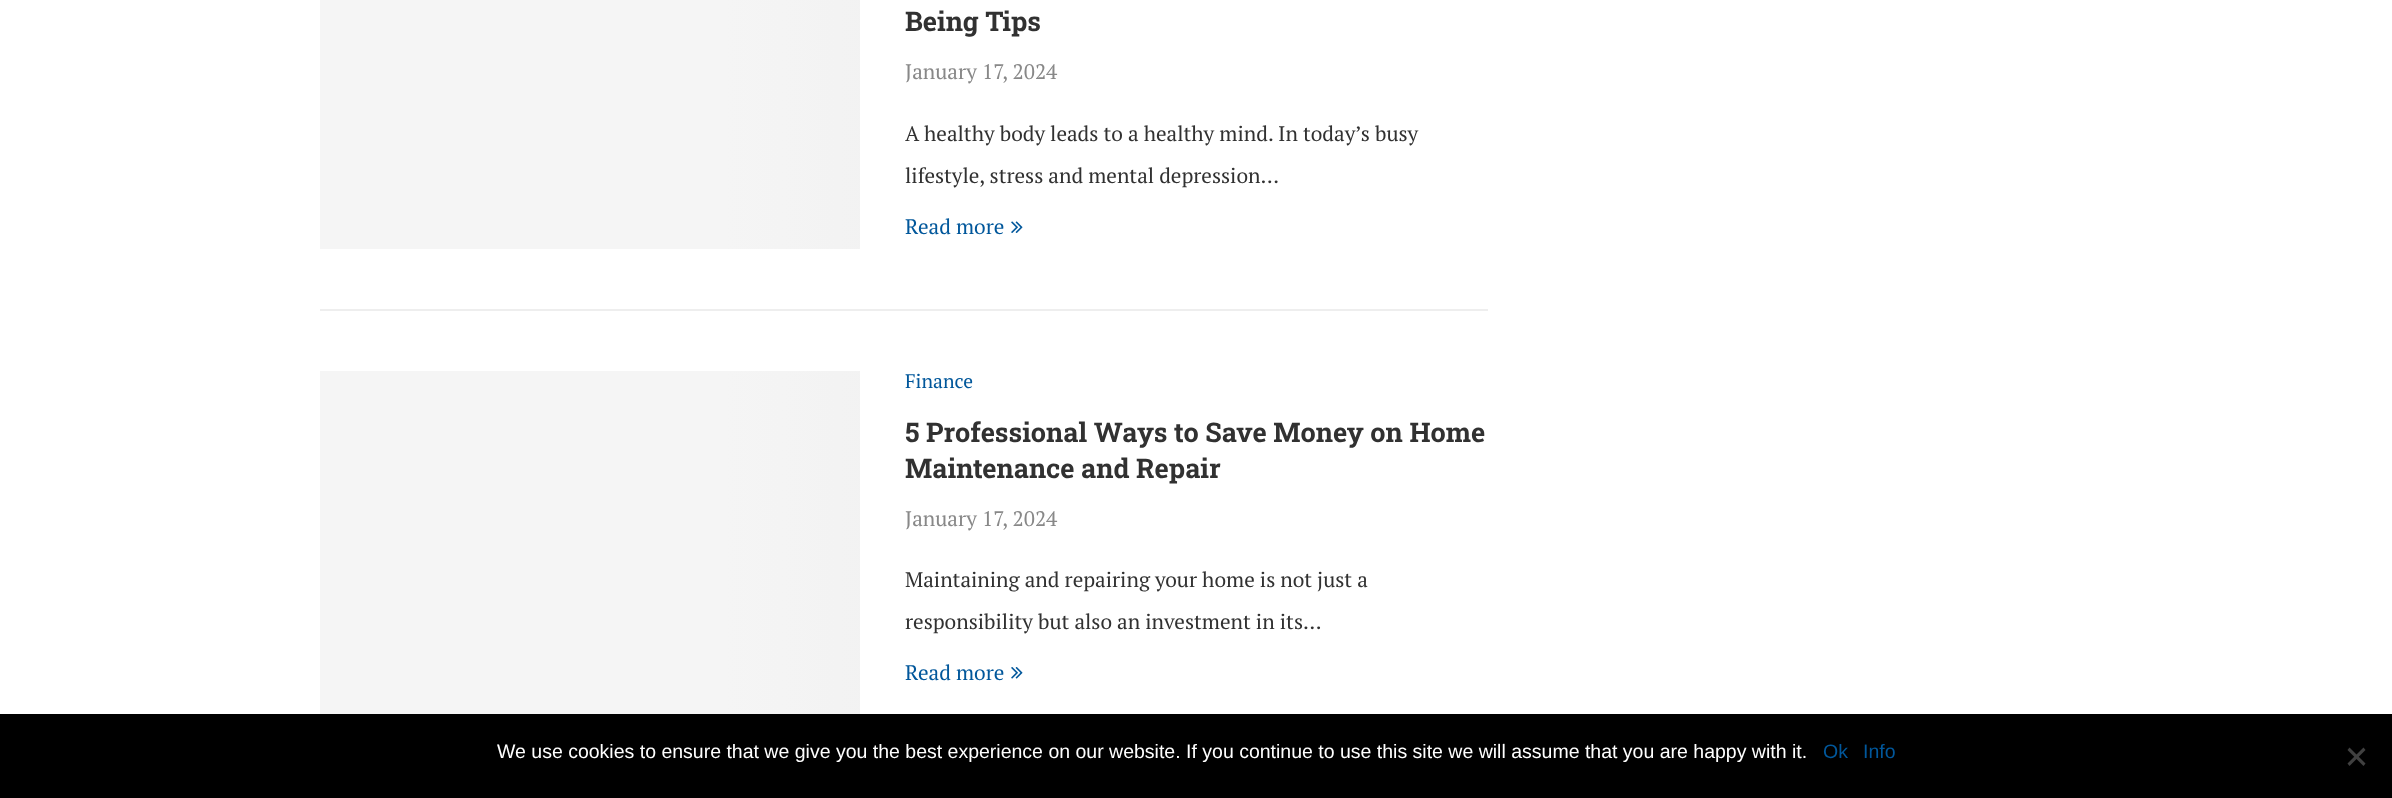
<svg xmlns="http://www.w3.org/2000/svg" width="2392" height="798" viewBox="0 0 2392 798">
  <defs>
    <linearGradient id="g1" gradientUnits="userSpaceOnUse" x1="1265" y1="68" x2="-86" y2="68"><stop offset="0" stop-color="#f5f5f5"/><stop offset="0.15" stop-color="#efefef"/><stop offset="0.4" stop-color="#f5f5f5"/><stop offset="1" stop-color="#f5f5f5"/></linearGradient>
    <linearGradient id="g2" gradientUnits="userSpaceOnUse" x1="1265" y1="551" x2="-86" y2="551"><stop offset="0" stop-color="#f5f5f5"/><stop offset="0.15" stop-color="#efefef"/><stop offset="0.4" stop-color="#f5f5f5"/><stop offset="1" stop-color="#f5f5f5"/></linearGradient>
  </defs>
  <rect width="100%" height="100%" fill="#ffffff"/>
  <rect x="320" y="309" width="1168" height="2" fill="#eeeeee"/>
  <rect x="320" y="0" width="540" height="249" fill="url(#g1)"/>
  <text x="905" y="31" font-family="Roboto Slab" font-size="27" font-weight="bold" fill="#313131">Being Tips</text>
  <text x="905" y="79" font-family="PT Serif" font-size="21" fill="#888888">January 17, 2024</text>
  <text x="905" y="141" font-family="PT Serif" font-size="21" fill="#313131">A healthy body leads to a healthy mind. In today’s busy</text>
  <text x="905" y="183" font-family="PT Serif" font-size="21" fill="#313131">lifestyle, stress and mental depression…</text>
  <text x="905" y="234" font-family="PT Serif" font-size="21" fill="#01579b">Read more</text>
  <image x="1011" y="221" width="12" height="12" href="img1.png"/>
  <rect x="320" y="371" width="540" height="343" fill="url(#g2)"/>
  <text x="905" y="388" font-family="PT Serif" font-size="19.5" fill="#01579b">Finance</text>
  <text x="905" y="442" font-family="Roboto Slab" font-size="27" font-weight="bold" fill="#313131">5 Professional Ways to Save Money on Home</text>
  <text x="905" y="478" font-family="Roboto Slab" font-size="27" font-weight="bold" fill="#313131">Maintenance and Repair</text>
  <text x="905" y="526" font-family="PT Serif" font-size="21" fill="#888888">January 17, 2024</text>
  <text x="905" y="587" font-family="PT Serif" font-size="21" fill="#313131">Maintaining and repairing your home is not just a</text>
  <text x="905" y="629" font-family="PT Serif" font-size="21" fill="#313131">responsibility but also an investment in its…</text>
  <text x="905" y="680" font-family="PT Serif" font-size="21" fill="#01579b">Read more</text>
  <image x="1011" y="667" width="12" height="12" href="img2.png"/>
  <rect x="0" y="714" width="2392" height="84" fill="#000000"/>
  <text x="497" y="758" font-family="Liberation Sans" font-size="19.5" fill="#ffffff">We use cookies to ensure that we give you the best experience on our website. If you continue to use this site we will assume that you are happy with it.</text>
  <text x="1823" y="758" font-family="Liberation Sans" font-size="19.5" fill="#01579b">Ok</text>
  <text x="1863" y="758" font-family="Liberation Sans" font-size="19.5" fill="#01579b">Info</text>
  <path d="M2363.5 747.5L2365.5 750L2349.5 766L2347.5 763.5Z" fill="#404040"/>
  <path d="M2347.5 750L2349.5 747.5L2365.5 763.5L2363.5 766Z" fill="#404040"/>
</svg>
